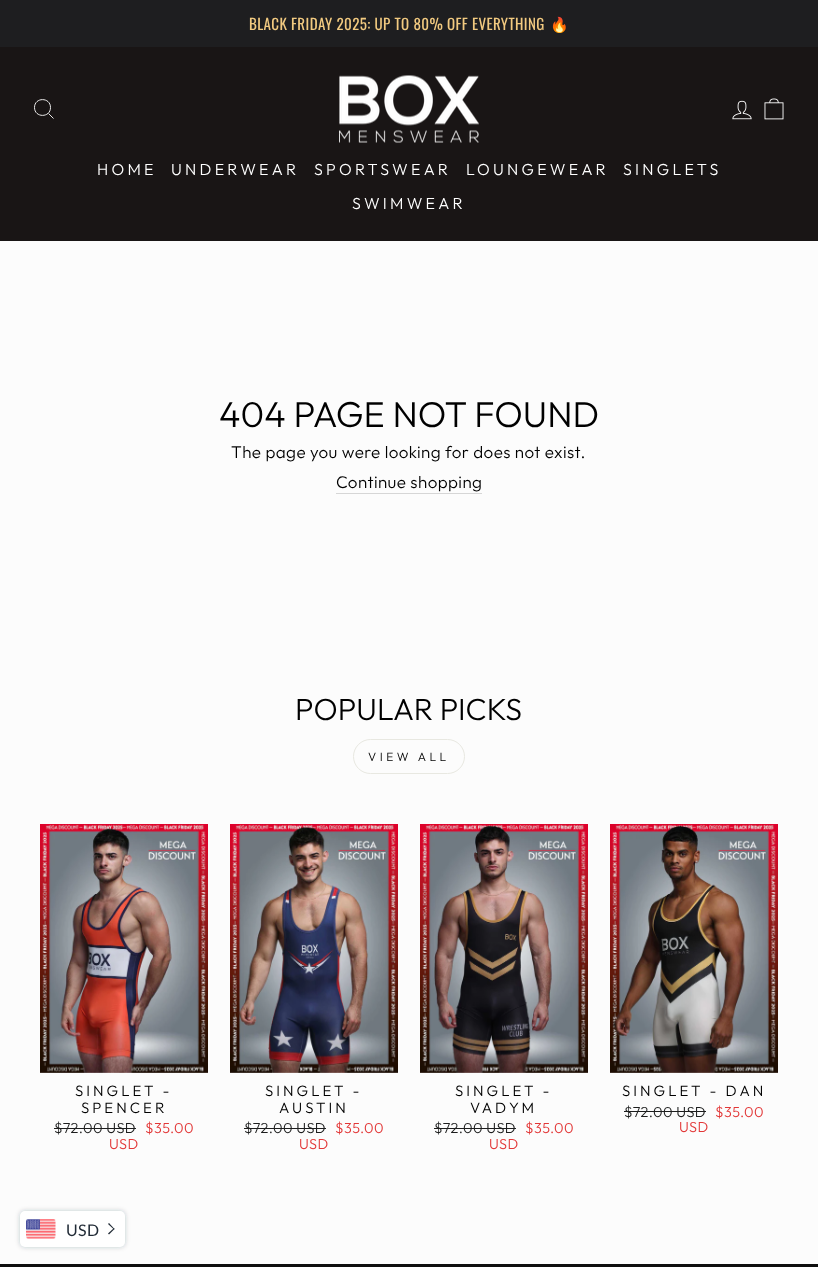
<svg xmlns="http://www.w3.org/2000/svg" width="818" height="1267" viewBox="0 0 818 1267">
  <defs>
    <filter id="blur1" x="-50%" y="-200%" width="200%" height="500%"><feGaussianBlur stdDeviation="2.5"/></filter>
  </defs>
  <rect width="100%" height="100%" fill="#fcfcfc"/>
  <rect x="0" y="0" width="818" height="47" fill="#1e1e20"/>
  <text x="249" y="30" font-family="Oswald" font-size="15" letter-spacing="0.4" fill="#f2ca80">BLACK FRIDAY 2025: UP TO 80% OFF EVERYTHING</text>
  <text x="550" y="30" font-family="Noto Color Emoji" font-size="15" letter-spacing="0.4" fill="#f2ca80">🔥</text>
  <rect x="0" y="47" width="818" height="194" fill="#191515"/>
  <path d="M50.5 107.5C50.5 118 34.5 118 34.5 107.5C34.5 97 50.5 97 50.5 107.5ZM53.5 118.5L48.5 113.5" fill="none" stroke="#ffffff" stroke-width="0.9"/>
  <image x="339" y="75" width="140" height="68" href="img1.png"/>
  <image x="732" y="100" width="20" height="20" href="img2.png"/>
  <image x="764" y="98" width="20" height="22" href="img3.png"/>
  <text x="97" y="175" font-family="Outfit" font-size="16" font-weight="300" letter-spacing="3.25" fill="#ffffff">HOME</text>
  <text x="171" y="175" font-family="Outfit" font-size="16" font-weight="300" letter-spacing="3.25" fill="#ffffff">UNDERWEAR</text>
  <text x="314" y="175" font-family="Outfit" font-size="16" font-weight="300" letter-spacing="3.25" fill="#ffffff">SPORTSWEAR</text>
  <text x="466" y="175" font-family="Outfit" font-size="16" font-weight="300" letter-spacing="3.25" fill="#ffffff">LOUNGEWEAR</text>
  <text x="623" y="175" font-family="Outfit" font-size="16" font-weight="300" letter-spacing="3.25" fill="#ffffff">SINGLETS</text>
  <text x="352" y="209" font-family="Outfit" font-size="16" font-weight="300" letter-spacing="3.25" fill="#ffffff">SWIMWEAR</text>
  <text x="219" y="427" font-family="Outfit" font-size="36" font-weight="300" fill="#000000">404 PAGE NOT FOUND</text>
  <text x="231" y="458" font-family="Outfit" font-size="17" font-weight="300" letter-spacing="0.4" fill="#000000">The page you were looking for does not exist.</text>
  <rect x="336" y="493" width="146" height="1" fill="#d6d6d6"/>
  <text x="336" y="488" font-family="Outfit" font-size="17" font-weight="300" letter-spacing="0.4" fill="#000000">Continue shopping</text>
  <text x="295" y="720" font-family="Outfit" font-size="30.5" font-weight="300" fill="#000000">POPULAR PICKS</text>
  <rect x="353.5" y="739.5" width="111" height="34" rx="17" fill="none" stroke="#e8e8e1"/>
  <text x="368" y="761" font-family="Outfit" font-size="12" font-weight="300" letter-spacing="3.5" fill="#000000">VIEW ALL</text>
  <image x="40" y="824" width="168" height="249" href="img4.png"/>
  <text x="75" y="1096" font-family="Outfit" font-size="15" font-weight="300" letter-spacing="3" fill="#000000">SINGLET -</text>
  <text x="81" y="1113" font-family="Outfit" font-size="15" font-weight="300" letter-spacing="3" fill="#000000">SPENCER</text>
  <text x="54" y="1133" font-family="Outfit" font-size="14.5" font-weight="300" letter-spacing="0.4" fill="#1c1d1d">$72.00 USD</text>
  <rect x="54" y="1128" width="82" height="1" fill="#1c1d1d"/>
  <text x="145" y="1133" font-family="Outfit" font-size="14.5" font-weight="300" letter-spacing="0.4" fill="#e23737">$35.00</text>
  <text x="109" y="1149" font-family="Outfit" font-size="14.5" font-weight="300" letter-spacing="0.4" fill="#e23737">USD</text>
  <image x="230" y="824" width="168" height="249" href="img5.png"/>
  <text x="265" y="1096" font-family="Outfit" font-size="15" font-weight="300" letter-spacing="3" fill="#000000">SINGLET -</text>
  <text x="279" y="1113" font-family="Outfit" font-size="15" font-weight="300" letter-spacing="3" fill="#000000">AUSTIN</text>
  <text x="244" y="1133" font-family="Outfit" font-size="14.5" font-weight="300" letter-spacing="0.4" fill="#1c1d1d">$72.00 USD</text>
  <rect x="244" y="1128" width="82" height="1" fill="#1c1d1d"/>
  <text x="335" y="1133" font-family="Outfit" font-size="14.5" font-weight="300" letter-spacing="0.4" fill="#e23737">$35.00</text>
  <text x="299" y="1149" font-family="Outfit" font-size="14.5" font-weight="300" letter-spacing="0.4" fill="#e23737">USD</text>
  <image x="420" y="824" width="168" height="249" href="img6.png"/>
  <text x="455" y="1096" font-family="Outfit" font-size="15" font-weight="300" letter-spacing="3" fill="#000000">SINGLET -</text>
  <text x="470" y="1113" font-family="Outfit" font-size="15" font-weight="300" letter-spacing="3" fill="#000000">VADYM</text>
  <text x="434" y="1133" font-family="Outfit" font-size="14.5" font-weight="300" letter-spacing="0.4" fill="#1c1d1d">$72.00 USD</text>
  <rect x="434" y="1128" width="82" height="1" fill="#1c1d1d"/>
  <text x="525" y="1133" font-family="Outfit" font-size="14.5" font-weight="300" letter-spacing="0.4" fill="#e23737">$35.00</text>
  <text x="489" y="1149" font-family="Outfit" font-size="14.5" font-weight="300" letter-spacing="0.4" fill="#e23737">USD</text>
  <image x="610" y="824" width="168" height="249" href="img7.png"/>
  <text x="622" y="1096" font-family="Outfit" font-size="15" font-weight="300" letter-spacing="3" fill="#000000">SINGLET - DAN</text>
  <text x="624" y="1117" font-family="Outfit" font-size="14.5" font-weight="300" letter-spacing="0.4" fill="#1c1d1d">$72.00 USD</text>
  <rect x="624" y="1111" width="82" height="1" fill="#1c1d1d"/>
  <text x="715" y="1117" font-family="Outfit" font-size="14.5" font-weight="300" letter-spacing="0.4" fill="#e23737">$35.00</text>
  <text x="679" y="1132" font-family="Outfit" font-size="14.5" font-weight="300" letter-spacing="0.4" fill="#e23737">USD</text>
  <rect x="0" y="1264" width="818" height="3" fill="#0f0f0f"/>
  <rect x="20" y="1211" width="105" height="36" rx="5" fill="#212b36" fill-opacity="0.25" filter="url(#blur1)"/>
  <rect x="20" y="1211" width="105" height="36" rx="5" fill="#ffffff"/>
  <image x="26" y="1219" width="30" height="20" href="img8.png"/>
  <text x="66" y="1236" font-family="Lato" font-size="16" letter-spacing="0.4" fill="#212b36">USD</text>
  <path d="M108 1224L109 1223L114.5 1229L114 1229.5Z" fill="#212b36"/>
  <path d="M108 1233.5L114 1228L114.5 1229L109 1234.5Z" fill="#212b36"/>
</svg>
